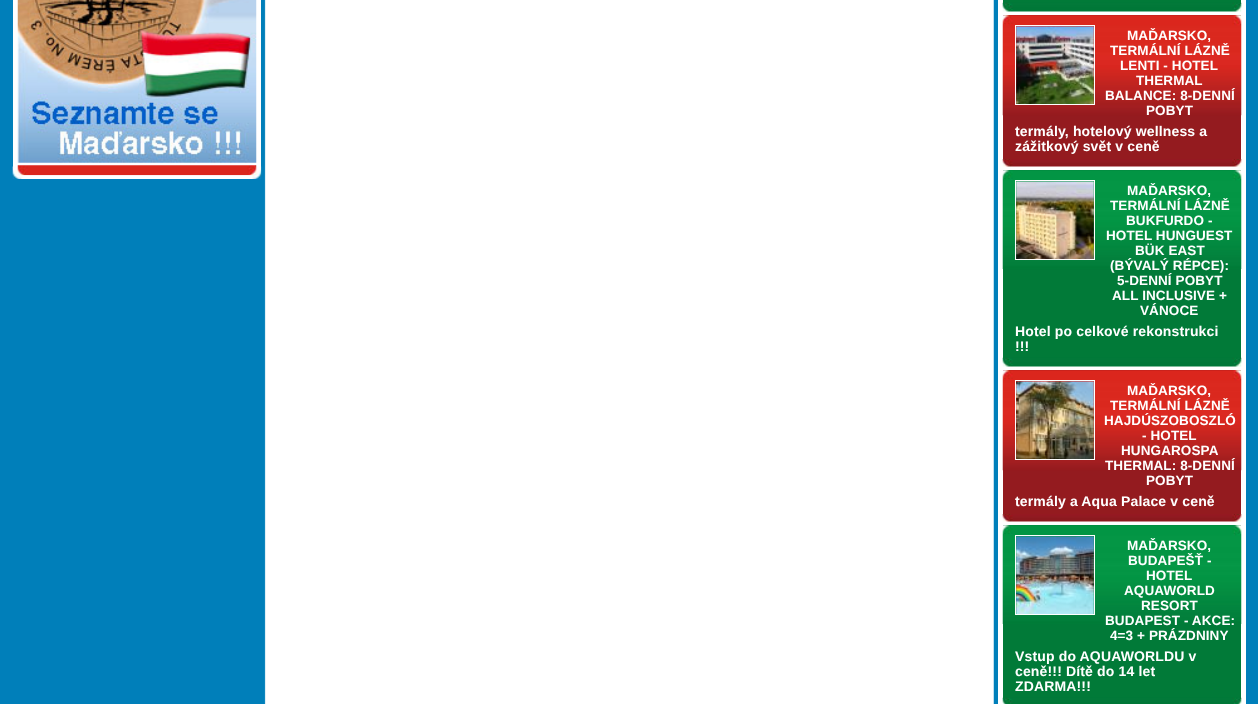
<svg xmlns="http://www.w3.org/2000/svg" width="1258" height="704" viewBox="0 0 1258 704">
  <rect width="100%" height="100%" fill="#007fba"/>
  <image x="264" y="0" width="730" height="704" href="img1.png"/>
  <rect x="13" y="0" width="248" height="167" fill="#ffffff"/>
  <image x="17" y="0" width="240" height="163" href="img2.png"/>
  <image x="12" y="166" width="250" height="13" href="img4.png"/>
  <image x="17" y="165" width="240" height="11" href="img3.png"/>
  <rect x="998" y="0" width="248" height="704" fill="#ffffff"/>
  <rect x="1003" y="0" width="238" height="3" fill="#017a38"/>
  <image x="1002" y="2" width="240" height="10" href="img5.png"/>
  <rect x="1003" y="15" width="238" height="144" fill="#941b1f"/>
  <image x="1002" y="15" width="240" height="101" href="img6.png"/>
  <image x="1002" y="159" width="240" height="8" href="img7.png"/>
  <rect x="1015.5" y="25.5" width="79" height="79" fill="none" stroke="#ffffff"/>
  <image x="1016" y="26" width="78" height="78" href="img8.png"/>
  <text x="1127" y="40" font-family="Liberation Sans" font-size="13.5" font-weight="bold" letter-spacing="0.1" fill="#ffffff">MAĎARSKO,</text>
  <text x="1110" y="55" font-family="Liberation Sans" font-size="13.5" font-weight="bold" letter-spacing="0.1" fill="#ffffff">TERMÁLNÍ LÁZNĚ</text>
  <text x="1120" y="70" font-family="Liberation Sans" font-size="13.5" font-weight="bold" letter-spacing="0.1" fill="#ffffff">LENTI - HOTEL</text>
  <text x="1136" y="85" font-family="Liberation Sans" font-size="13.5" font-weight="bold" letter-spacing="0.1" fill="#ffffff">THERMAL</text>
  <text x="1105" y="100" font-family="Liberation Sans" font-size="13.5" font-weight="bold" letter-spacing="0.1" fill="#ffffff">BALANCE: 8-DENNÍ</text>
  <text x="1146" y="115" font-family="Liberation Sans" font-size="13.5" font-weight="bold" letter-spacing="0.1" fill="#ffffff">POBYT</text>
  <text x="1015" y="136" font-family="Liberation Sans" font-size="14" font-weight="bold" letter-spacing="0.15" fill="#ffffff">termály, hotelový wellness a</text>
  <text x="1015" y="151" font-family="Liberation Sans" font-size="14" font-weight="bold" letter-spacing="0.15" fill="#ffffff">zážitkový svět v ceně</text>
  <rect x="1003" y="170" width="238" height="188" fill="#017a38"/>
  <image x="1002" y="170" width="240" height="99" href="img9.png"/>
  <image x="1002" y="357" width="240" height="10" href="img5.png"/>
  <rect x="1015.5" y="180.5" width="79" height="79" fill="none" stroke="#ffffff"/>
  <image x="1016" y="181" width="78" height="78" href="img10.png"/>
  <text x="1127" y="195" font-family="Liberation Sans" font-size="13.5" font-weight="bold" letter-spacing="0.1" fill="#ffffff">MAĎARSKO,</text>
  <text x="1110" y="210" font-family="Liberation Sans" font-size="13.5" font-weight="bold" letter-spacing="0.1" fill="#ffffff">TERMÁLNÍ LÁZNĚ</text>
  <text x="1126" y="225" font-family="Liberation Sans" font-size="13.5" font-weight="bold" letter-spacing="0.1" fill="#ffffff">BUKFURDO -</text>
  <text x="1106" y="240" font-family="Liberation Sans" font-size="13.5" font-weight="bold" letter-spacing="0.1" fill="#ffffff">HOTEL HUNGUEST</text>
  <text x="1135" y="255" font-family="Liberation Sans" font-size="13.5" font-weight="bold" letter-spacing="0.1" fill="#ffffff">BÜK EAST</text>
  <text x="1110" y="270" font-family="Liberation Sans" font-size="13.5" font-weight="bold" letter-spacing="0.1" fill="#ffffff">(BÝVALÝ RÉPCE):</text>
  <text x="1117" y="285" font-family="Liberation Sans" font-size="13.5" font-weight="bold" letter-spacing="0.1" fill="#ffffff">5-DENNÍ POBYT</text>
  <text x="1112" y="300" font-family="Liberation Sans" font-size="13.5" font-weight="bold" letter-spacing="0.1" fill="#ffffff">ALL INCLUSIVE +</text>
  <text x="1140" y="315" font-family="Liberation Sans" font-size="13.5" font-weight="bold" letter-spacing="0.1" fill="#ffffff">VÁNOCE</text>
  <text x="1015" y="336" font-family="Liberation Sans" font-size="14" font-weight="bold" letter-spacing="0.15" fill="#ffffff">Hotel po celkové rekonstrukci</text>
  <text x="1015" y="351" font-family="Liberation Sans" font-size="14" font-weight="bold" letter-spacing="0.15" fill="#ffffff">!!!</text>
  <rect x="1003" y="370" width="238" height="144" fill="#941b1f"/>
  <image x="1002" y="370" width="240" height="101" href="img6.png"/>
  <image x="1002" y="514" width="240" height="8" href="img7.png"/>
  <rect x="1015.5" y="380.5" width="79" height="79" fill="none" stroke="#ffffff"/>
  <image x="1016" y="381" width="78" height="78" href="img11.png"/>
  <text x="1127" y="395" font-family="Liberation Sans" font-size="13.5" font-weight="bold" letter-spacing="0.1" fill="#ffffff">MAĎARSKO,</text>
  <text x="1110" y="410" font-family="Liberation Sans" font-size="13.5" font-weight="bold" letter-spacing="0.1" fill="#ffffff">TERMÁLNÍ LÁZNĚ</text>
  <text x="1104" y="425" font-family="Liberation Sans" font-size="13.5" font-weight="bold" letter-spacing="0.1" fill="#ffffff">HAJDÚSZOBOSZLÓ</text>
  <text x="1142" y="440" font-family="Liberation Sans" font-size="13.5" font-weight="bold" letter-spacing="0.1" fill="#ffffff">- HOTEL</text>
  <text x="1121" y="455" font-family="Liberation Sans" font-size="13.5" font-weight="bold" letter-spacing="0.1" fill="#ffffff">HUNGAROSPA</text>
  <text x="1105" y="470" font-family="Liberation Sans" font-size="13.5" font-weight="bold" letter-spacing="0.1" fill="#ffffff">THERMAL: 8-DENNÍ</text>
  <text x="1146" y="485" font-family="Liberation Sans" font-size="13.5" font-weight="bold" letter-spacing="0.1" fill="#ffffff">POBYT</text>
  <text x="1015" y="506" font-family="Liberation Sans" font-size="14" font-weight="bold" letter-spacing="0.15" fill="#ffffff">termály a Aqua Palace v ceně</text>
  <rect x="1003" y="525" width="238" height="173" fill="#017a38"/>
  <image x="1002" y="525" width="240" height="99" href="img9.png"/>
  <image x="1002" y="697" width="240" height="7" href="img12.png"/>
  <rect x="1015.5" y="535.5" width="79" height="79" fill="none" stroke="#ffffff"/>
  <image x="1016" y="536" width="78" height="78" href="img13.png"/>
  <text x="1127" y="550" font-family="Liberation Sans" font-size="13.5" font-weight="bold" letter-spacing="0.1" fill="#ffffff">MAĎARSKO,</text>
  <text x="1128" y="565" font-family="Liberation Sans" font-size="13.5" font-weight="bold" letter-spacing="0.1" fill="#ffffff">BUDAPEŠŤ -</text>
  <text x="1146" y="580" font-family="Liberation Sans" font-size="13.5" font-weight="bold" letter-spacing="0.1" fill="#ffffff">HOTEL</text>
  <text x="1124" y="595" font-family="Liberation Sans" font-size="13.5" font-weight="bold" letter-spacing="0.1" fill="#ffffff">AQUAWORLD</text>
  <text x="1141" y="610" font-family="Liberation Sans" font-size="13.5" font-weight="bold" letter-spacing="0.1" fill="#ffffff">RESORT</text>
  <text x="1105" y="625" font-family="Liberation Sans" font-size="13.5" font-weight="bold" letter-spacing="0.1" fill="#ffffff">BUDAPEST - AKCE:</text>
  <text x="1110" y="640" font-family="Liberation Sans" font-size="13.5" font-weight="bold" letter-spacing="0.1" fill="#ffffff">4=3 + PRÁZDNINY</text>
  <text x="1015" y="661" font-family="Liberation Sans" font-size="14" font-weight="bold" letter-spacing="0.15" fill="#ffffff">Vstup do AQUAWORLDU v</text>
  <text x="1015" y="676" font-family="Liberation Sans" font-size="14" font-weight="bold" letter-spacing="0.15" fill="#ffffff">ceně!!! Dítě do 14 let</text>
  <text x="1015" y="691" font-family="Liberation Sans" font-size="14" font-weight="bold" letter-spacing="0.15" fill="#ffffff">ZDARMA!!!</text>
</svg>
